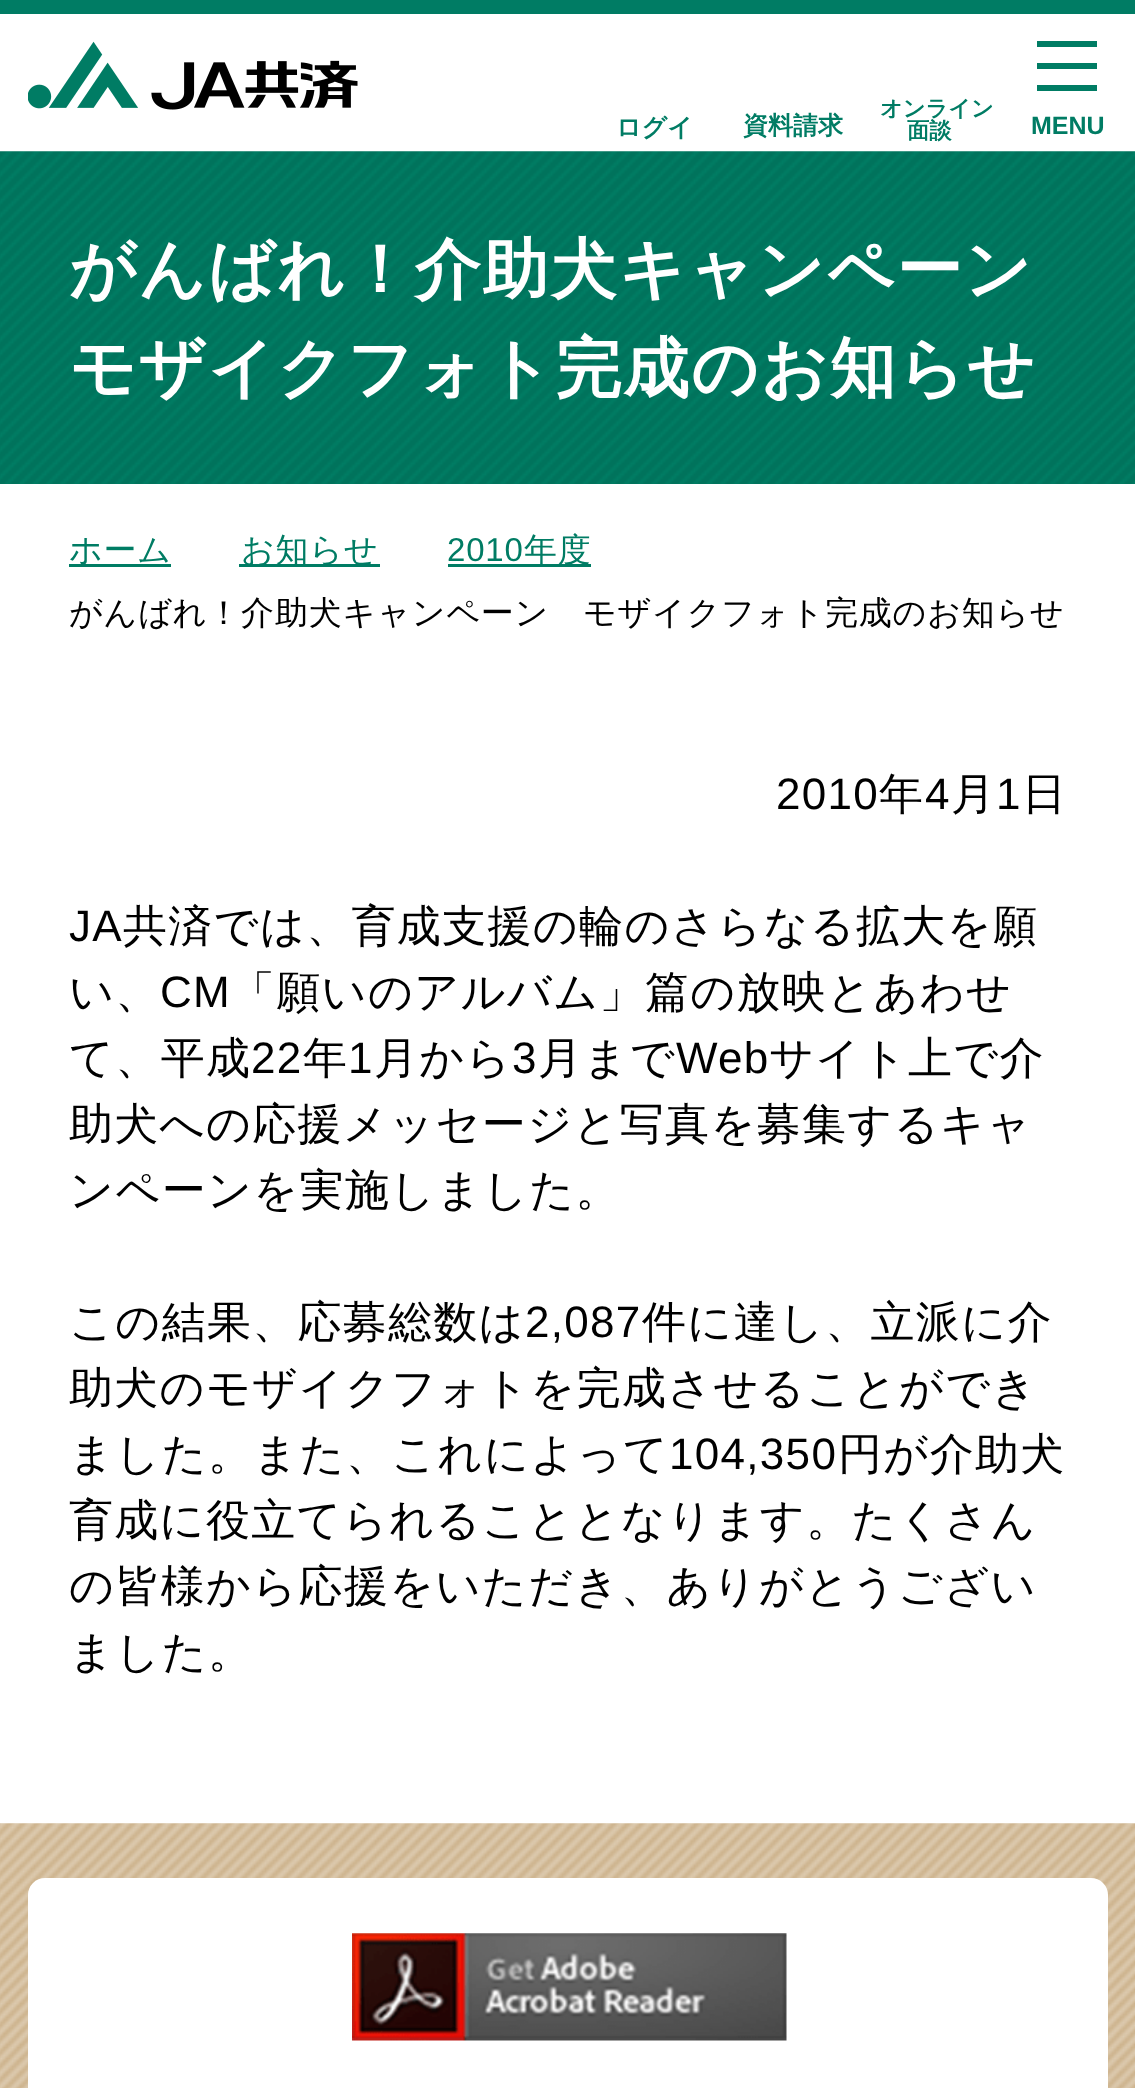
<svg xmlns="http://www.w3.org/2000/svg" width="1135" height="2088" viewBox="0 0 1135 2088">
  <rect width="100%" height="100%" fill="#ffffff"/>
  <rect x="0" y="0" width="1135" height="14" fill="#007c64"/>
  <image x="28" y="41" width="330" height="69" href="img1.png"/>
  <text x="616" y="136" font-family="WenQuanYi Zen Hei" font-size="25" font-weight="bold" fill="#007c64">ログイ</text>
  <text x="743" y="134" font-family="WenQuanYi Zen Hei" font-size="25" font-weight="bold" fill="#007c64">資料請求</text>
  <text x="880" y="116" font-family="WenQuanYi Zen Hei" font-size="22.25" font-weight="bold" fill="#007c64">オンライン</text>
  <text x="907" y="138" font-family="WenQuanYi Zen Hei" font-size="22.25" font-weight="bold" fill="#007c64">⾯談</text>
  <rect x="1037" y="41" width="60" height="6" fill="#007c64"/>
  <rect x="1037" y="63" width="60" height="6" fill="#007c64"/>
  <rect x="1037" y="85" width="60" height="6" fill="#007c64"/>
  <text x="1031" y="134" font-family="Liberation Sans" font-size="25" font-weight="bold" fill="#007c64">MENU</text>
  <image x="0" y="151" width="1135" height="333" href="img2.png"/>
  <text x="69" y="292" font-family="WenQuanYi Zen Hei" font-size="66" font-weight="bold" letter-spacing="1.9" fill="#ffffff">がんばれ！介助犬キャンペーン</text>
  <text x="69" y="391" font-family="WenQuanYi Zen Hei" font-size="66" font-weight="bold" letter-spacing="1.9" fill="#ffffff">モザイクフォト完成のお知らせ</text>
  <rect x="69" y="564" width="102" height="3" fill="#007c64"/>
  <text x="69" y="561" font-family="WenQuanYi Zen Hei" font-size="33" font-weight="500" letter-spacing="0.8" fill="#007c64">ホーム</text>
  <rect x="239" y="564" width="141" height="3" fill="#007c64"/>
  <text x="241" y="561" font-family="WenQuanYi Zen Hei" font-size="33" font-weight="500" letter-spacing="0.8" fill="#007c64">お知らせ</text>
  <text x="447" y="561" font-family="Liberation Sans" font-size="33" letter-spacing="0.8" fill="#007c64">2010</text>
  <rect x="448" y="564" width="143" height="3" fill="#007c64"/>
  <text x="524" y="561" font-family="WenQuanYi Zen Hei" font-size="33" font-weight="500" letter-spacing="0.8" fill="#007c64">年度</text>
  <text x="69" y="624" font-family="WenQuanYi Zen Hei" font-size="33" font-weight="500" letter-spacing="0.8" fill="#000000">がんばれ！介助犬キャンペーン　モザイクフォト完成のお知らせ</text>
  <text x="776" y="809" font-family="Liberation Sans" font-size="44" letter-spacing="1.3" fill="#000000">2010</text>
  <text x="879" y="809" font-family="WenQuanYi Zen Hei" font-size="44" font-weight="500" letter-spacing="1.3" fill="#000000">年</text>
  <text x="925" y="809" font-family="Liberation Sans" font-size="44" letter-spacing="1.3" fill="#000000">4</text>
  <text x="951" y="809" font-family="WenQuanYi Zen Hei" font-size="44" font-weight="500" letter-spacing="1.3" fill="#000000">月</text>
  <text x="996" y="809" font-family="Liberation Sans" font-size="44" letter-spacing="1.3" fill="#000000">1</text>
  <text x="1022" y="809" font-family="WenQuanYi Zen Hei" font-size="44" font-weight="500" letter-spacing="1.3" fill="#000000">日</text>
  <text x="69" y="941" font-family="Liberation Sans" font-size="44" letter-spacing="1.3" fill="#000000">JA</text>
  <text x="123" y="941" font-family="WenQuanYi Zen Hei" font-size="44" font-weight="500" letter-spacing="1.3" fill="#000000">共済では、育成支援の輪のさらなる拡大を願</text>
  <text x="69" y="1007" font-family="WenQuanYi Zen Hei" font-size="44" font-weight="500" letter-spacing="1.3" fill="#000000">い、</text>
  <text x="160" y="1007" font-family="Liberation Sans" font-size="44" letter-spacing="1.3" fill="#000000">CM</text>
  <text x="231" y="1007" font-family="WenQuanYi Zen Hei" font-size="44" font-weight="500" letter-spacing="1.3" fill="#000000">「願いのアルバム」篇の放映とあわせ</text>
  <text x="69" y="1073" font-family="WenQuanYi Zen Hei" font-size="44" font-weight="500" letter-spacing="1.3" fill="#000000">て、平成</text>
  <text x="251" y="1073" font-family="Liberation Sans" font-size="44" letter-spacing="1.3" fill="#000000">22</text>
  <text x="303" y="1073" font-family="WenQuanYi Zen Hei" font-size="44" font-weight="500" letter-spacing="1.3" fill="#000000">年</text>
  <text x="348" y="1073" font-family="Liberation Sans" font-size="44" letter-spacing="1.3" fill="#000000">1</text>
  <text x="374" y="1073" font-family="WenQuanYi Zen Hei" font-size="44" font-weight="500" letter-spacing="1.3" fill="#000000">月から</text>
  <text x="512" y="1073" font-family="Liberation Sans" font-size="44" letter-spacing="1.3" fill="#000000">3</text>
  <text x="538" y="1073" font-family="WenQuanYi Zen Hei" font-size="44" font-weight="500" letter-spacing="1.3" fill="#000000">月まで</text>
  <text x="676" y="1073" font-family="Liberation Sans" font-size="44" letter-spacing="1.3" fill="#000000">Web</text>
  <text x="769" y="1073" font-family="WenQuanYi Zen Hei" font-size="44" font-weight="500" letter-spacing="1.3" fill="#000000">サイト上で介</text>
  <text x="69" y="1139" font-family="WenQuanYi Zen Hei" font-size="44" font-weight="500" letter-spacing="1.3" fill="#000000">助犬への応援メッセージと写真を募集するキャ</text>
  <text x="69" y="1205" font-family="WenQuanYi Zen Hei" font-size="44" font-weight="500" letter-spacing="1.3" fill="#000000">ンペーンを実施しました。</text>
  <text x="69" y="1337" font-family="WenQuanYi Zen Hei" font-size="44" font-weight="500" letter-spacing="1.3" fill="#000000">この結果、応募総数は</text>
  <text x="525" y="1337" font-family="Liberation Sans" font-size="44" letter-spacing="1.3" fill="#000000">2,087</text>
  <text x="642" y="1337" font-family="WenQuanYi Zen Hei" font-size="44" font-weight="500" letter-spacing="1.3" fill="#000000">件に達し、立派に介</text>
  <text x="69" y="1403" font-family="WenQuanYi Zen Hei" font-size="44" font-weight="500" letter-spacing="1.3" fill="#000000">助犬のモザイクフォトを完成させることができ</text>
  <text x="69" y="1469" font-family="WenQuanYi Zen Hei" font-size="44" font-weight="500" letter-spacing="1.3" fill="#000000">ました。また、これによって</text>
  <text x="669" y="1469" font-family="Liberation Sans" font-size="44" letter-spacing="1.3" fill="#000000">104,350</text>
  <text x="838" y="1469" font-family="WenQuanYi Zen Hei" font-size="44" font-weight="500" letter-spacing="1.3" fill="#000000">円が介助犬</text>
  <text x="69" y="1535" font-family="WenQuanYi Zen Hei" font-size="44" font-weight="500" letter-spacing="1.3" fill="#000000">育成に役立てられることとなります。たくさん</text>
  <text x="69" y="1601" font-family="WenQuanYi Zen Hei" font-size="44" font-weight="500" letter-spacing="1.3" fill="#000000">の皆様から応援をいただき、ありがとうござい</text>
  <text x="69" y="1667" font-family="WenQuanYi Zen Hei" font-size="44" font-weight="500" letter-spacing="1.3" fill="#000000">ました。</text>
  <image x="0" y="1823" width="1135" height="265" href="img3.png"/>
  <rect x="28" y="1878" width="1080" height="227" rx="17" fill="#ffffff"/>
  <image x="352" y="1933" width="435" height="108" href="img4.png"/>
</svg>
